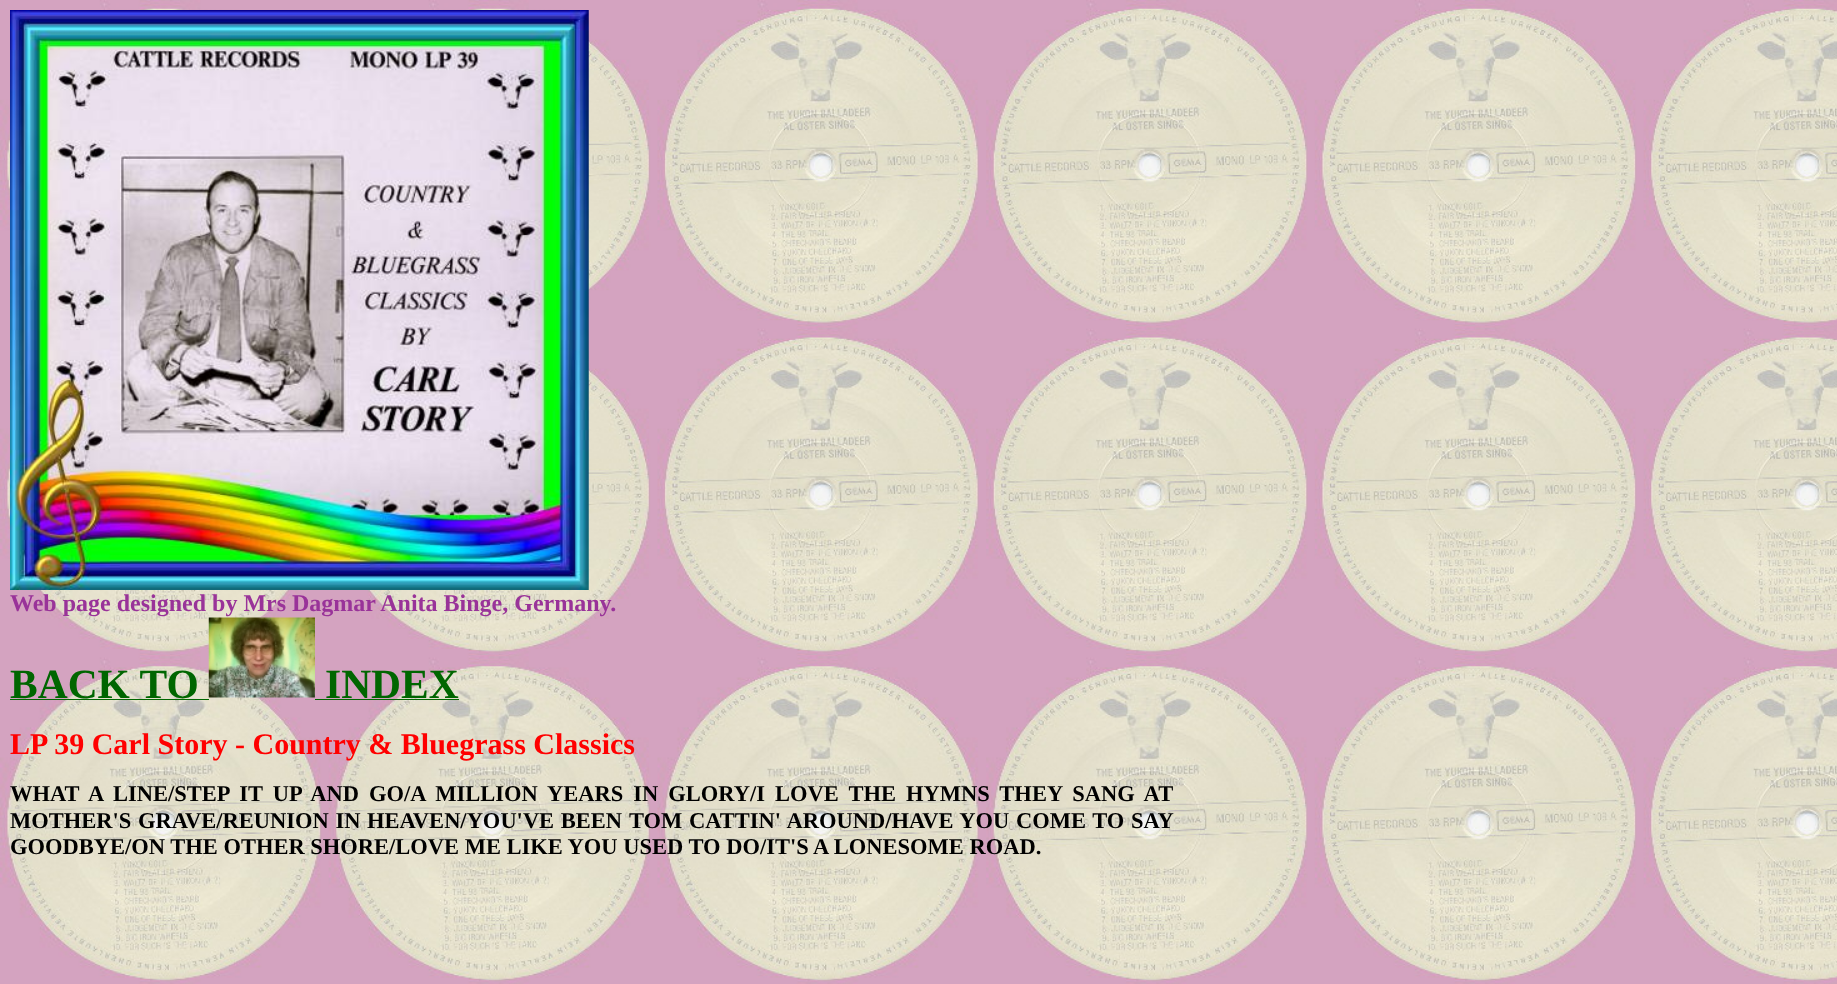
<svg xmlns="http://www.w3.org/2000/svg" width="1837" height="984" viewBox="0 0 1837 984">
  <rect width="100%" height="100%" fill="#ffffff"/>
  <image x="0" y="0" width="1837" height="984" href="img1.png"/>
  <image x="10" y="10" width="579" height="580" href="img2.png"/>
  <text x="10" y="611" font-family="Liberation Serif" font-size="24" font-weight="bold" fill="#993399">Web page designed by Mrs Dagmar Anita Binge, Germany.</text>
  <text x="10" y="698" font-family="Liberation Serif" font-size="41.5" font-weight="bold" fill="#006600">BACK TO</text>
  <rect x="10" y="699" width="199" height="1" fill="#006600"/>
  <image x="208" y="617" width="107" height="81" href="img3.png"/>
  <text x="325" y="698" font-family="Liberation Serif" font-size="41.5" font-weight="bold" fill="#006600">INDEX</text>
  <rect x="315" y="699" width="144" height="1" fill="#006600"/>
  <text x="10" y="754" font-family="Liberation Serif" font-size="30" font-weight="bold" fill="#ff0000">LP 39 Carl Story - Country &amp; Bluegrass Classics</text>
  <text x="10" y="801" font-family="Liberation Serif" font-size="22.5" font-weight="bold" fill="#000000">WHAT</text>
  <text x="88" y="801" word-spacing="4.4" font-family="Liberation Serif" font-size="22.5" font-weight="bold" fill="#000000">A LINE/STEP IT UP AND GO/A MILLION YEARS IN GLORY/I LOVE THE</text>
  <text x="906" y="801" word-spacing="4.4" font-family="Liberation Serif" font-size="22.5" font-weight="bold" fill="#000000">HYMNS THEY SANG AT</text>
  <text x="10" y="828" word-spacing="1" font-family="Liberation Serif" font-size="22.5" font-weight="bold" fill="#000000">MOTHER'S GRAVE/REUNION IN HEAVEN/YOU'VE BEEN</text>
  <text x="629" y="828" word-spacing="1" font-family="Liberation Serif" font-size="22.5" font-weight="bold" fill="#000000">TOM CATTIN' AROUND/HAVE YOU COME TO SAY</text>
  <text x="10" y="854" font-family="Liberation Serif" font-size="22.5" font-weight="bold" fill="#000000">GOODBYE/ON THE OTHER SHORE/LOVE ME LIKE YOU USED TO DO/IT'S A LONESOME ROAD.</text>
</svg>
